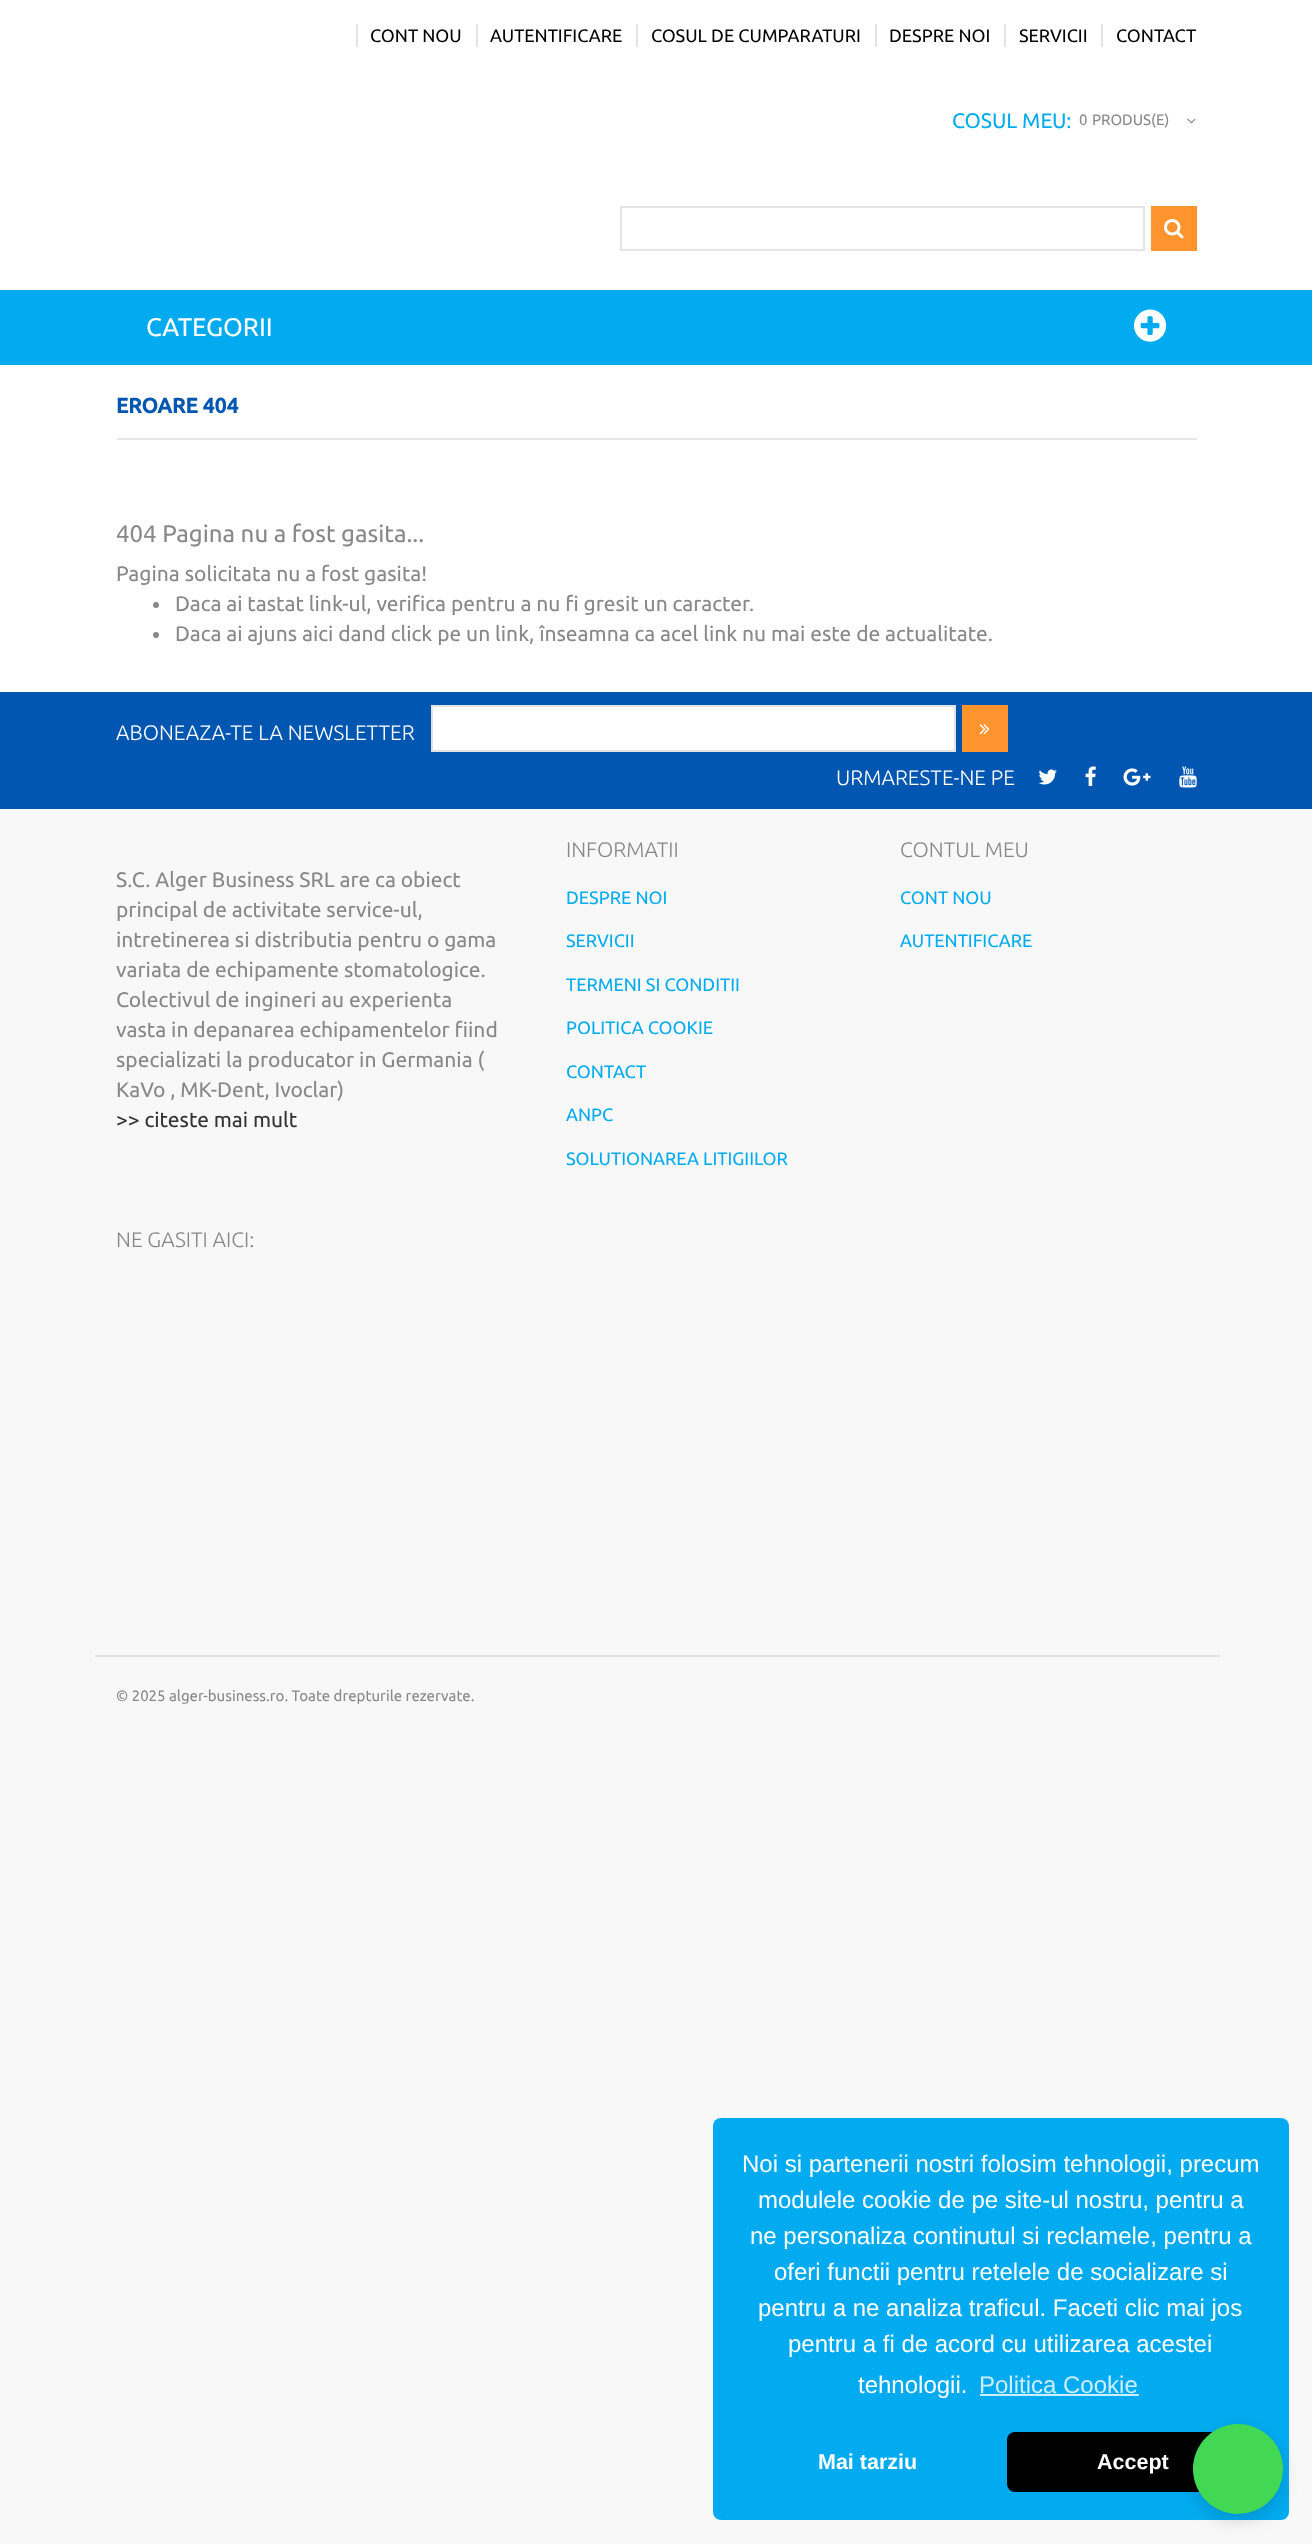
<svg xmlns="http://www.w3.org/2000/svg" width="1312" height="2544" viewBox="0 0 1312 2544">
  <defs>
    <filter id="blur1" x="-50%" y="-200%" width="200%" height="500%"><feGaussianBlur stdDeviation="9"/></filter>
  </defs>
  <rect width="100%" height="100%" fill="#f8f8f8"/>
  <rect x="0" y="0" width="1312" height="692" fill="#ffffff"/>
  <rect x="356" y="24" width="2" height="23" fill="#e2e2e2"/>
  <text x="370" y="42" font-family="Ubuntu" font-size="18" fill="#000000">CONT NOU</text>
  <rect x="476" y="24" width="2" height="23" fill="#e2e2e2"/>
  <text x="490" y="42" font-family="Ubuntu" font-size="18" fill="#000000">AUTENTIFICARE</text>
  <rect x="636" y="24" width="2" height="23" fill="#e2e2e2"/>
  <text x="651" y="42" font-family="Ubuntu" font-size="18" fill="#000000">COSUL DE CUMPARATURI</text>
  <rect x="875" y="24" width="2" height="23" fill="#e2e2e2"/>
  <text x="889" y="42" font-family="Ubuntu" font-size="18" fill="#000000">DESPRE NOI</text>
  <rect x="1004" y="24" width="2" height="23" fill="#e2e2e2"/>
  <text x="1019" y="42" font-family="Ubuntu" font-size="18" fill="#000000">SERVICII</text>
  <rect x="1101" y="24" width="2" height="23" fill="#e2e2e2"/>
  <text x="1116" y="42" font-family="Ubuntu" font-size="18" fill="#000000">CONTACT</text>
  <text x="952" y="128" font-family="Ubuntu" font-size="21" fill="#02abf0">COSUL MEU:</text>
  <text x="1079" y="125" font-family="Ubuntu" font-size="15" fill="#888888">0</text>
  <text x="1092" y="125" font-family="Ubuntu" font-size="15" fill="#888888">PRODUS(E)</text>
  <image x="1187" y="118" width="9" height="6" href="img1.png"/>
  <rect x="621" y="207" width="523" height="43" fill="none" stroke="#e5e5e5" stroke-width="2"/>
  <rect x="1151" y="206" width="46" height="45" fill="#fe942e"/>
  <image x="1164" y="219" width="20" height="20" href="img2.png"/>
  <rect x="0" y="290" width="1312" height="75" fill="#02abf0"/>
  <text x="146" y="336" font-family="Ubuntu" font-size="25.5" fill="#ffffff">CATEGORII</text>
  <image x="1134" y="309" width="33" height="33" href="img3.png"/>
  <rect x="117" y="438" width="1080" height="2" fill="#e7e7e6"/>
  <text x="116" y="413" font-family="Ubuntu" font-size="21" font-weight="bold" fill="#0056b1">EROARE 404</text>
  <text x="116" y="542" font-family="Ubuntu" font-size="24" fill="#888888">404 Pagina nu a fost gasita...</text>
  <text x="116" y="581" font-family="Ubuntu" font-size="21" fill="#888888">Pagina solicitata nu a fost gasita!</text>
  <circle cx="156" cy="605" r="3" fill="#888888"/>
  <text x="175" y="611" font-family="Ubuntu" font-size="21" fill="#888888">Daca ai tastat link-ul, verifica pentru a nu fi gresit un caracter.</text>
  <circle cx="156" cy="635" r="3" fill="#888888"/>
  <text x="175" y="641" font-family="Ubuntu" font-size="21" fill="#888888">Daca ai ajuns aici dand click pe un link, înseamna ca acel link nu mai este de actualitate.</text>
  <rect x="0" y="692" width="1312" height="117" fill="#0056b1"/>
  <text x="116" y="740" font-family="Ubuntu" font-size="21" font-weight="300" fill="#ffffff">ABONEAZA-TE LA NEWSLETTER</text>
  <rect x="432" y="706" width="523" height="45" fill="#ffffff" stroke="#e2e2e2" stroke-width="2"/>
  <rect x="962" y="705" width="46" height="47" fill="#fe942e"/>
  <image x="979" y="724" width="11" height="11" href="img4.png"/>
  <text x="836" y="785" font-family="Ubuntu" font-size="21" font-weight="300" fill="#ffffff">URMARESTE-NE PE</text>
  <image x="1038" y="769" width="19" height="16" href="img5.png"/>
  <image x="1085" y="766" width="11" height="20" href="img6.png"/>
  <image x="1123" y="768" width="28" height="18" href="img7.png"/>
  <image x="1179" y="766" width="18" height="22" href="img8.png"/>
  <rect x="95" y="1655" width="1125" height="2" fill="#e2e2e2"/>
  <text x="116" y="887" font-family="Ubuntu" font-size="21" fill="#888888">S.C. Alger Business SRL are ca obiect</text>
  <text x="116" y="917" font-family="Ubuntu" font-size="21" fill="#888888">principal de activitate service-ul,</text>
  <text x="116" y="947" font-family="Ubuntu" font-size="21" fill="#888888">intretinerea si distributia pentru o gama</text>
  <text x="116" y="977" font-family="Ubuntu" font-size="21" fill="#888888">variata de echipamente stomatologice.</text>
  <text x="116" y="1007" font-family="Ubuntu" font-size="21" fill="#888888">Colectivul de ingineri au experienta</text>
  <text x="116" y="1037" font-family="Ubuntu" font-size="21" fill="#888888">vasta in depanarea echipamentelor fiind</text>
  <text x="116" y="1067" font-family="Ubuntu" font-size="21" fill="#888888">specializati la producator in Germania (</text>
  <text x="116" y="1097" font-family="Ubuntu" font-size="21" fill="#888888">KaVo , MK-Dent, Ivoclar)</text>
  <text x="116" y="1127" font-family="Ubuntu" font-size="21" fill="#333333">&gt;&gt; citeste mai mult</text>
  <text x="566" y="857" font-family="Ubuntu" font-size="21" font-weight="300" fill="#888888">INFORMATII</text>
  <text x="566" y="904" font-family="Ubuntu" font-size="18" fill="#02abf0">DESPRE NOI</text>
  <text x="566" y="947" font-family="Ubuntu" font-size="18" fill="#02abf0">SERVICII</text>
  <text x="566" y="991" font-family="Ubuntu" font-size="18" fill="#02abf0">TERMENI SI CONDITII</text>
  <text x="566" y="1034" font-family="Ubuntu" font-size="18" fill="#02abf0">POLITICA COOKIE</text>
  <text x="566" y="1078" font-family="Ubuntu" font-size="18" fill="#02abf0">CONTACT</text>
  <text x="566" y="1121" font-family="Ubuntu" font-size="18" fill="#02abf0">ANPC</text>
  <text x="566" y="1165" font-family="Ubuntu" font-size="18" fill="#02abf0">SOLUTIONAREA LITIGIILOR</text>
  <text x="900" y="857" font-family="Ubuntu" font-size="21" font-weight="300" fill="#888888">CONTUL MEU</text>
  <text x="900" y="904" font-family="Ubuntu" font-size="18" fill="#02abf0">CONT NOU</text>
  <text x="900" y="947" font-family="Ubuntu" font-size="18" fill="#02abf0">AUTENTIFICARE</text>
  <text x="116" y="1247" font-family="Ubuntu" font-size="21" font-weight="300" fill="#888888">NE GASITI AICI:</text>
  <text x="116" y="1701" font-family="Ubuntu" font-size="15" fill="#888888">© 2025 alger-business.ro. Toate drepturile rezervate.</text>
  <rect x="713" y="2118" width="576" height="402" rx="8" fill="#02abf0"/>
  <text x="742" y="2172" font-family="Liberation Sans" font-size="24" fill="#ffffff">Noi si partenerii nostri folosim tehnologii, precum</text>
  <text x="758" y="2208" font-family="Liberation Sans" font-size="24" fill="#ffffff">modulele cookie de pe site-ul nostru, pentru a</text>
  <text x="750" y="2244" font-family="Liberation Sans" font-size="24" fill="#ffffff">ne personaliza continutul si reclamele, pentru a</text>
  <text x="774" y="2280" font-family="Liberation Sans" font-size="24" fill="#ffffff">oferi functii pentru retelele de socializare si</text>
  <text x="758" y="2316" font-family="Liberation Sans" font-size="24" fill="#ffffff">pentru a ne analiza traficul. Faceti clic mai jos</text>
  <text x="788" y="2352" font-family="Liberation Sans" font-size="24" fill="#ffffff">pentru a fi de acord cu utilizarea acestei</text>
  <text x="858" y="2393" font-family="Liberation Sans" font-size="24" fill="#ffffff">tehnologii.</text>
  <text x="979" y="2393" font-family="Liberation Sans" font-size="24" fill="#cceefc">Politica Cookie</text>
  <rect x="980" y="2394" width="159" height="2" fill="#cceefc"/>
  <text x="818" y="2469" font-family="Liberation Sans" font-size="21.5" font-weight="bold" fill="#ffffff">Mai tarziu</text>
  <rect x="1007" y="2432" width="253" height="60" rx="8" fill="#000000"/>
  <text x="1097" y="2469" font-family="Liberation Sans" font-size="21.5" font-weight="bold" fill="#ffffff">Accept</text>
  <rect x="1193" y="2430" width="90" height="90" rx="45" fill="#000000" fill-opacity="0.15" filter="url(#blur1)"/>
  <circle cx="1238" cy="2469" r="45" fill="#43d854"/>
</svg>
